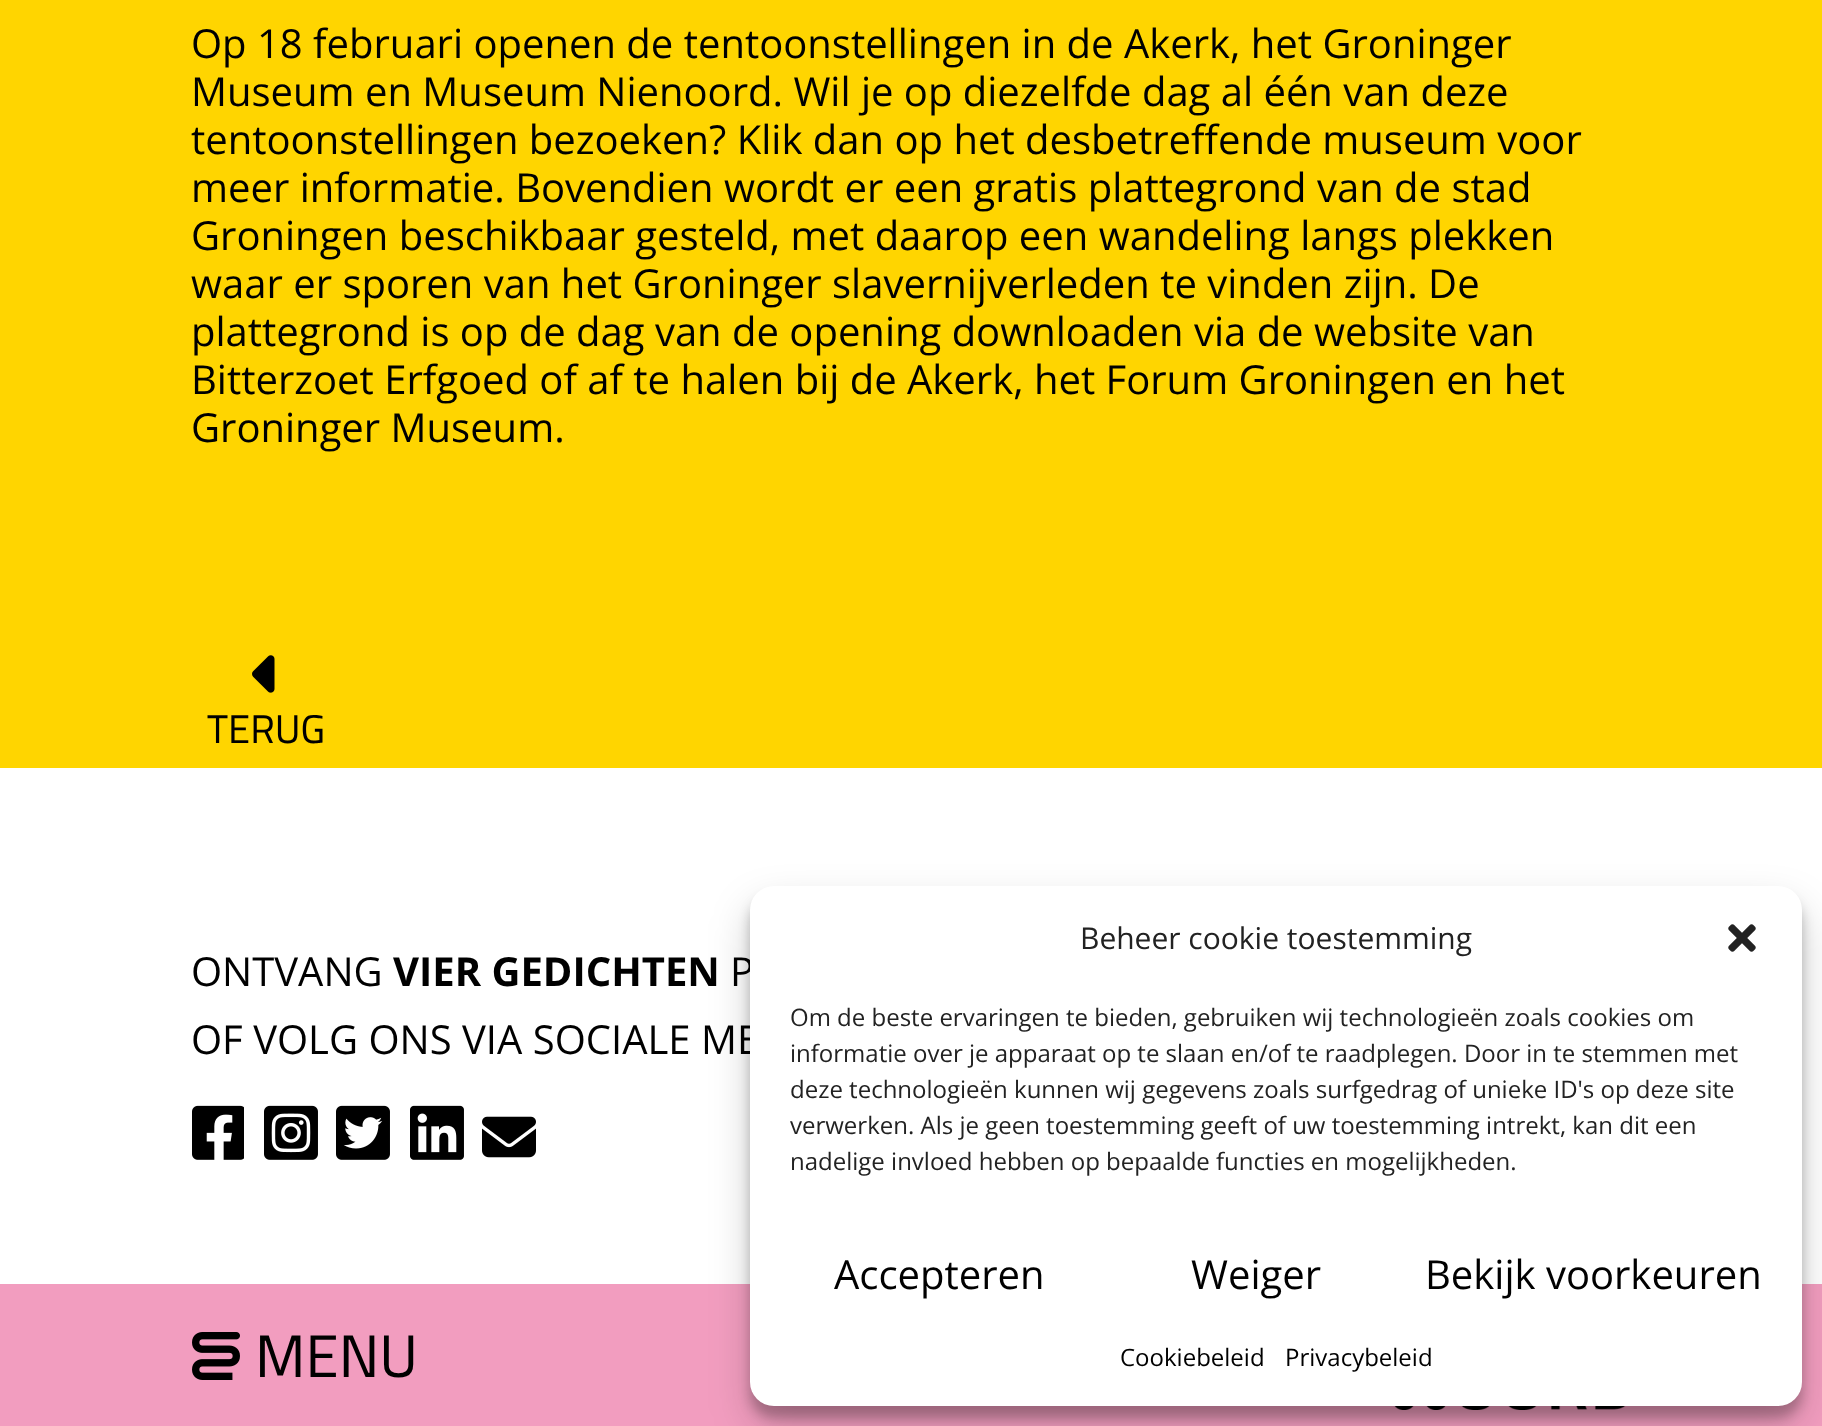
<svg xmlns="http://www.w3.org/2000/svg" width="1822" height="1426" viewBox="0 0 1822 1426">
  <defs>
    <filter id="blur1" x="-50%" y="-200%" width="200%" height="500%"><feGaussianBlur stdDeviation="6"/></filter>
    <filter id="blur2" x="-50%" y="-200%" width="200%" height="500%"><feGaussianBlur stdDeviation="20"/></filter>
  </defs>
  <rect width="100%" height="100%" fill="#ffd500"/>
  <text x="191" y="58" font-family="Open Sans" font-size="40" fill="#000000">Op 18 februari openen de tentoonstellingen in de Akerk, het Groninger</text>
  <text x="191" y="106" font-family="Open Sans" font-size="40" fill="#000000">Museum en Museum Nienoord. Wil je op diezelfde dag al één van deze</text>
  <text x="191" y="154" font-family="Open Sans" font-size="40" fill="#000000">tentoonstellingen bezoeken? Klik dan op het desbetreffende museum voor</text>
  <text x="191" y="202" font-family="Open Sans" font-size="40" fill="#000000">meer informatie. Bovendien wordt er een gratis plattegrond van de stad</text>
  <text x="191" y="250" font-family="Open Sans" font-size="40" fill="#000000">Groningen beschikbaar gesteld, met daarop een wandeling langs plekken</text>
  <text x="191" y="298" font-family="Open Sans" font-size="40" fill="#000000">waar er sporen van het Groninger slavernijverleden te vinden zijn. De</text>
  <text x="191" y="346" font-family="Open Sans" font-size="40" fill="#000000">plattegrond is op de dag van de opening downloaden via de website van</text>
  <text x="191" y="394" font-family="Open Sans" font-size="40" fill="#000000">Bitterzoet Erfgoed of af te halen bij de Akerk, het Forum Groningen en het</text>
  <text x="191" y="442" font-family="Open Sans" font-size="40" fill="#000000">Groninger Museum.</text>
  <image x="252" y="655" width="23" height="38" href="img1.png"/>
  <text x="207" y="743" font-family="Cairo" font-size="40" fill="#000000">TERUG</text>
  <rect x="0" y="768" width="1822" height="516" fill="#ffffff"/>
  <text x="191" y="986" font-family="Open Sans" font-size="40" fill="#000000">ONTVANG</text>
  <text x="393" y="986" font-family="Open Sans" font-size="40" font-weight="bold" fill="#000000">VIER GEDICHTEN</text>
  <text x="730" y="986" font-family="Open Sans" font-size="40" fill="#000000">P</text>
  <text x="191" y="1054" font-family="Open Sans" font-size="40" fill="#000000">OF VOLG ONS VIA SOCIALE ME</text>
  <image x="192" y="1105" width="52" height="55" href="img2.png"/>
  <image x="264" y="1105" width="54" height="55" href="img3.png"/>
  <image x="336" y="1105" width="54" height="55" href="img4.png"/>
  <image x="410" y="1105" width="54" height="55" href="img5.png"/>
  <image x="482" y="1116" width="54" height="42" href="img6.png"/>
  <rect x="0" y="1284" width="1822" height="142" fill="#f29dbf"/>
  <image x="192" y="1332" width="48" height="48" href="img7.png"/>
  <text x="255" y="1377" font-family="Cairo" font-size="60" fill="#000000">MENU</text>
  <image x="1394" y="1406" width="232" height="4" href="img8.png"/>
  <rect x="750" y="898" width="1052" height="520" rx="24" fill="#000000" fill-opacity="0.23" filter="url(#blur1)"/>
  <rect x="750" y="906" width="1052" height="520" rx="24" fill="#000000" fill-opacity="0.19" filter="url(#blur2)"/>
  <rect x="750" y="886" width="1052" height="520" rx="24" fill="#ffffff"/>
  <text x="1080" y="949" font-family="Open Sans" font-size="30" fill="#222222">Beheer cookie toestemming</text>
  <image x="1728" y="924" width="28" height="28" href="img9.png"/>
  <text x="790" y="1026" font-family="Open Sans" font-size="24" fill="#222222">Om de beste ervaringen te bieden, gebruiken wij technologieën zoals cookies om</text>
  <text x="790" y="1062" font-family="Open Sans" font-size="24" fill="#222222">informatie over je apparaat op te slaan en/of te raadplegen. Door in te stemmen met</text>
  <text x="790" y="1098" font-family="Open Sans" font-size="24" fill="#222222">deze technologieën kunnen wij gegevens zoals surfgedrag of unieke ID's op deze site</text>
  <text x="790" y="1134" font-family="Open Sans" font-size="24" fill="#222222">verwerken. Als je geen toestemming geeft of uw toestemming intrekt, kan dit een</text>
  <text x="790" y="1170" font-family="Open Sans" font-size="24" fill="#222222">nadelige invloed hebben op bepaalde functies en mogelijkheden.</text>
  <text x="834" y="1289" font-family="Open Sans" font-size="40" fill="#000000">Accepteren</text>
  <text x="1191" y="1289" font-family="Open Sans" font-size="40" fill="#000000">Weiger</text>
  <text x="1425" y="1289" font-family="Open Sans" font-size="40" fill="#000000">Bekijk voorkeuren</text>
  <text x="1120" y="1366" font-family="Open Sans" font-size="24" fill="#000000">Cookiebeleid</text>
  <text x="1285" y="1366" font-family="Open Sans" font-size="24" fill="#000000">Privacybeleid</text>
</svg>
